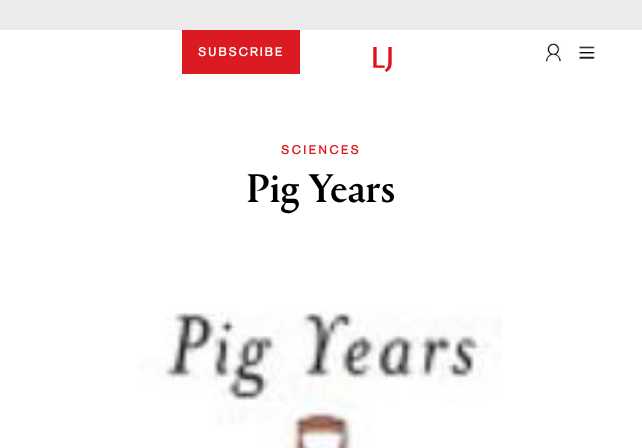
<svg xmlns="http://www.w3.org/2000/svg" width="642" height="448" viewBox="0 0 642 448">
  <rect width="100%" height="100%" fill="#ffffff"/>
  <rect x="0" y="0" width="642" height="30" fill="#ebebeb"/>
  <rect x="182" y="30" width="118" height="44" fill="#db1a21"/>
  <text x="198" y="56" font-family="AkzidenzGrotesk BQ" font-size="12" font-weight="bold" letter-spacing="2" fill="#ffffff">SUBSCRIBE</text>
  <image x="373" y="47" width="19" height="25" href="img1.png"/>
  <image x="546" y="43" width="15" height="19" href="img2.png"/>
  <image x="579" y="46" width="16" height="13" href="img3.png"/>
  <text x="281" y="154" font-family="AkzidenzGrotesk BQ" font-size="12" font-weight="bold" letter-spacing="2.5" fill="#db1a21">SCIENCES</text>
  <text x="246" y="202" font-family="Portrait" font-size="42" font-weight="500" fill="#000000">Pig Years</text>
  <image x="139" y="311" width="363" height="137" href="img4.png"/>
</svg>
